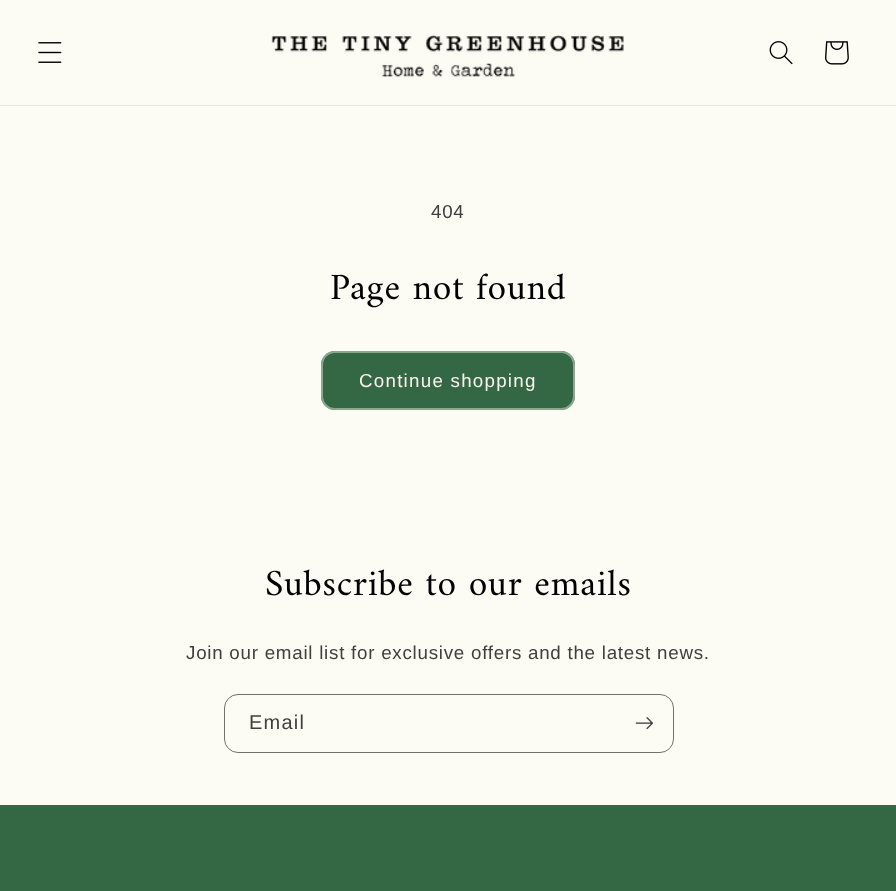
<svg xmlns="http://www.w3.org/2000/svg" width="896" height="891" viewBox="0 0 896 891">
  <rect width="100%" height="100%" fill="#fcfbf4"/>
  <rect x="0" y="105" width="896" height="1" fill="#e8e7e0"/>
  <image x="38" y="42" width="24" height="21" href="img1.png"/>
  <image x="271" y="35" width="353" height="43" href="img2.png"/>
  <image x="769" y="41" width="24" height="24" href="img3.png"/>
  <image x="825" y="41" width="24" height="24" href="img4.png"/>
  <text x="431" y="218" font-family="Liberation Sans" font-size="18.75" letter-spacing="0.75" fill="#3f3f3d">404</text>
  <text x="330" y="299" font-family="Amiri" font-size="37.5" letter-spacing="0.75" fill="#000000">Page not found</text>
  <rect x="321" y="351" width="254" height="59" rx="14" fill="#346845"/>
  <rect x="321.5" y="351.5" width="253" height="58" rx="13.5" fill="none" stroke="#346845"/>
  <rect x="322" y="352" width="252" height="57" rx="13" fill="none" stroke="#f9f5ec" stroke-opacity="0.45" stroke-width="2"/>
  <text x="359" y="387" font-family="Liberation Sans" font-size="18.75" letter-spacing="1.25" fill="#f9f5ec">Continue shopping</text>
  <text x="265" y="595" font-family="Amiri" font-size="37.5" letter-spacing="0.75" fill="#000000">Subscribe to our emails</text>
  <text x="186" y="659" font-family="Liberation Sans" font-size="18.75" letter-spacing="0.75" fill="#3f3f3d">Join our email list for exclusive offers and the latest news.</text>
  <rect x="224.5" y="694.5" width="449" height="58" rx="13.5" fill="none" stroke="#71716e"/>
  <text x="249" y="729" font-family="Liberation Sans" font-size="20" letter-spacing="1.25" fill="#3f3f3d">Email</text>
  <image x="635" y="717" width="18" height="13" href="img5.png"/>
  <rect x="0" y="805" width="896" height="86" fill="#346845"/>
</svg>
